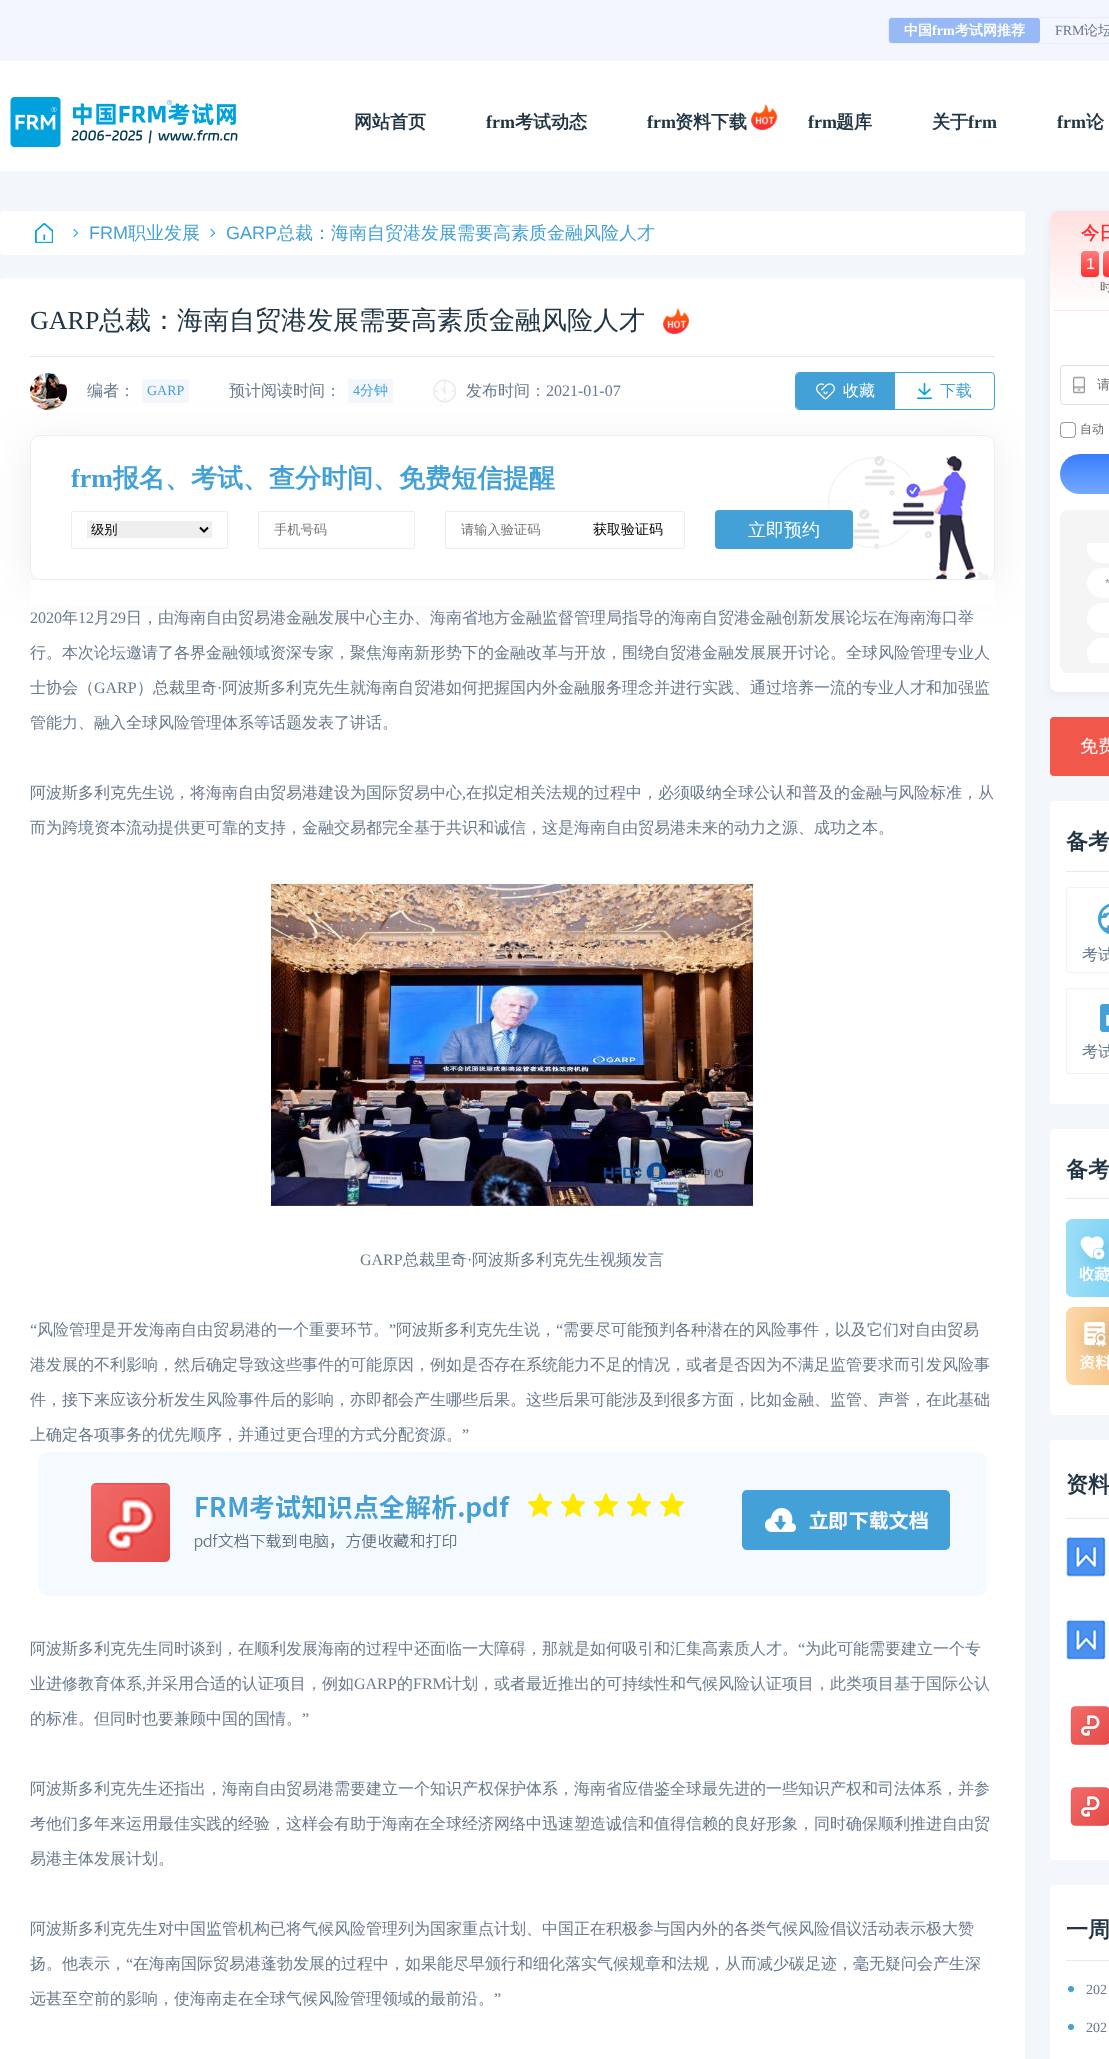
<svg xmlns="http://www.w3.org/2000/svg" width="1109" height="2059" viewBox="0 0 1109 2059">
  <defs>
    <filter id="blur1" x="-50%" y="-200%" width="200%" height="500%"><feGaussianBlur stdDeviation="18.5"/></filter>
    <filter id="blur2" x="-50%" y="-200%" width="200%" height="500%"><feGaussianBlur stdDeviation="4"/></filter>
    <clipPath id="clip1"><rect x="1050" y="211" width="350" height="100" rx="8"/></clipPath>
    <linearGradient id="g1" gradientUnits="userSpaceOnUse" x1="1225" y1="211" x2="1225" y2="310"><stop offset="0" stop-color="#ffe0e0"/><stop offset="1" stop-color="#ffffff"/></linearGradient>
    <linearGradient id="g2" gradientUnits="userSpaceOnUse" x1="1090" y1="251" x2="1090" y2="277"><stop offset="0" stop-color="#ff7d7f"/><stop offset="1" stop-color="#ff2e31"/></linearGradient>
    <linearGradient id="g3" gradientUnits="userSpaceOnUse" x1="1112" y1="251" x2="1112" y2="277"><stop offset="0" stop-color="#ff7d7f"/><stop offset="1" stop-color="#ff2e31"/></linearGradient>
    <linearGradient id="g4" gradientUnits="userSpaceOnUse" x1="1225" y1="454" x2="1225" y2="494"><stop offset="0" stop-color="#387ffc"/><stop offset="1" stop-color="#75a8ff"/></linearGradient>
    <clipPath id="clip2"><rect x="1070" y="543" width="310" height="120"/></clipPath>
  </defs>
  <rect width="100%" height="100%" fill="#f3f7fb"/>
  <rect x="0" y="0" width="1109" height="61" fill="#f4f6ff"/>
  <rect x="888.5" y="17.5" width="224" height="26" rx="2.5" fill="none" stroke="#e9edfb"/>
  <rect x="889" y="18" width="151" height="25" rx="3" fill="#97baf6"/>
  <text x="904" y="35" font-family="WenQuanYi Zen Hei" font-size="14" font-weight="bold" fill="#ffffff">中国</text>
  <text x="932" y="35" font-family="Liberation Serif" font-size="14" font-weight="bold" fill="#ffffff">frm</text>
  <text x="955" y="35" font-family="WenQuanYi Zen Hei" font-size="14" font-weight="bold" fill="#ffffff">考试网推荐</text>
  <text x="1055" y="35" font-family="Liberation Serif" font-size="14" fill="#69798c">FRM</text>
  <text x="1084" y="35" font-family="WenQuanYi Zen Hei" font-size="14" font-weight="500" fill="#69798c">论坛</text>
  <rect x="0" y="61" width="1109" height="110" fill="#ffffff"/>
  <image x="10" y="97" width="228" height="50" href="img1.png"/>
  <text x="354" y="128" font-family="WenQuanYi Zen Hei" font-size="18" font-weight="bold" fill="#213545">网站首页</text>
  <text x="486" y="128" font-family="Liberation Serif" font-size="18" font-weight="bold" fill="#213545">frm</text>
  <text x="515" y="128" font-family="WenQuanYi Zen Hei" font-size="18" font-weight="bold" fill="#213545">考试动态</text>
  <text x="647" y="128" font-family="Liberation Serif" font-size="18" font-weight="bold" fill="#213545">frm</text>
  <text x="675" y="128" font-family="WenQuanYi Zen Hei" font-size="18" font-weight="bold" fill="#213545">资料下载</text>
  <image x="751" y="104" width="26" height="26" href="img2.png"/>
  <text x="808" y="128" font-family="Liberation Serif" font-size="18" font-weight="bold" fill="#213545">frm</text>
  <text x="836" y="128" font-family="WenQuanYi Zen Hei" font-size="18" font-weight="bold" fill="#213545">题库</text>
  <text x="932" y="128" font-family="WenQuanYi Zen Hei" font-size="18" font-weight="bold" fill="#213545">关于</text>
  <text x="968" y="128" font-family="Liberation Serif" font-size="18" font-weight="bold" fill="#213545">frm</text>
  <text x="1057" y="128" font-family="Liberation Serif" font-size="18" font-weight="bold" fill="#213545">frm</text>
  <text x="1086" y="128" font-family="WenQuanYi Zen Hei" font-size="18" font-weight="bold" fill="#213545">论</text>
  <rect x="0" y="211" width="1025" height="44" rx="4" fill="#ffffff"/>
  <image x="35" y="223" width="18" height="20" href="img3.png"/>
  <image x="73" y="228" width="6" height="10" href="img4.png"/>
  <text x="89" y="239" font-family="Liberation Sans" font-size="18" fill="#43a1d8">FRM</text>
  <text x="128" y="239" font-family="WenQuanYi Zen Hei" font-size="18" font-weight="500" fill="#43a1d8">职业发展</text>
  <image x="210" y="228" width="6" height="10" href="img4.png"/>
  <text x="226" y="239" font-family="Liberation Sans" font-size="18" fill="#43a1d8">GARP</text>
  <text x="277" y="239" font-family="WenQuanYi Zen Hei" font-size="18" font-weight="500" fill="#43a1d8">总裁：海南自贸港发展需要高素质金融风险人才</text>
  <rect x="0" y="278" width="1025" height="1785" rx="4" fill="#ffffff"/>
  <rect x="30" y="356" width="965" height="1" fill="#e9e9e9"/>
  <text x="30" y="329" font-family="Liberation Serif" font-size="26" fill="#213545">GARP</text>
  <text x="99" y="329" font-family="WenQuanYi Zen Hei" font-size="26" font-weight="500" fill="#213545">总裁：海南自贸港发展需要高素质金融风险人才</text>
  <image x="663" y="308" width="26" height="26" href="img2.png"/>
  <rect x="27" y="438" width="971" height="151" rx="13" fill="#c9c9c9" fill-opacity="0.27" filter="url(#blur1)"/>
  <image x="30" y="373" width="37" height="37" href="img5.png"/>
  <text x="87" y="396" font-family="WenQuanYi Zen Hei" font-size="16" font-weight="500" fill="#69798c">编者：</text>
  <rect x="142" y="379" width="47" height="24" rx="2" fill="#f3f7fb"/>
  <text x="147" y="395" font-family="Liberation Serif" font-size="14" fill="#43a1d8">GARP</text>
  <text x="229" y="396" font-family="WenQuanYi Zen Hei" font-size="16" font-weight="500" fill="#69798c">预计阅读时间：</text>
  <rect x="348" y="379" width="45" height="24" rx="2" fill="#f3f7fb"/>
  <text x="353" y="395" font-family="Liberation Serif" font-size="14" fill="#43a1d8">4</text>
  <text x="360" y="395" font-family="WenQuanYi Zen Hei" font-size="14" font-weight="500" fill="#43a1d8">分钟</text>
  <image x="433" y="379" width="23" height="24" href="img6.png"/>
  <text x="466" y="396" font-family="WenQuanYi Zen Hei" font-size="16" font-weight="500" fill="#69798c">发布时间：</text>
  <text x="546" y="396" font-family="Liberation Serif" font-size="16" fill="#69798c">2021-01-07</text>
  <rect x="795.5" y="372.5" width="199" height="37" rx="3.5" fill="none" stroke="#43a1d8"/>
  <path d="M799 373H895V409H799C797.5 409 796 407.5 796 406V376C796 374.5 797.5 373 799 373Z" fill="#43a1d8"/>
  <image x="816" y="383" width="19" height="17" href="img7.png"/>
  <text x="843" y="396" font-family="WenQuanYi Zen Hei" font-size="16" font-weight="500" fill="#ffffff">收藏</text>
  <image x="917" y="383" width="15" height="16" href="img8.png"/>
  <text x="940" y="396" font-family="WenQuanYi Zen Hei" font-size="16" font-weight="500" fill="#43a1d8">下载</text>
  <rect x="30" y="435" width="965" height="145" rx="10" fill="#ffffff"/>
  <image x="828" y="455" width="161" height="125" href="img9.png"/>
  <rect x="30.5" y="435.5" width="964" height="144" rx="9.5" fill="none" stroke="#eeeeee"/>
  <text x="71" y="487" font-family="Liberation Serif" font-size="26" font-weight="bold" fill="#43a1d8">frm</text>
  <text x="113" y="487" font-family="WenQuanYi Zen Hei" font-size="26" font-weight="bold" fill="#43a1d8">报名、考试、查分时间、免费短信提醒</text>
  <rect x="71.5" y="511.5" width="156" height="37" rx="1.5" fill="none" stroke="#eeeeee"/>
  <rect x="87" y="521" width="125" height="17" fill="#efefef"/>
  <path d="M200 527.5L204 531.5L208 527.5" fill="none" stroke="#000000" stroke-width="2"/>
  <text x="91" y="534" font-family="WenQuanYi Zen Hei" font-size="13.25" font-weight="500" fill="#000000">级别</text>
  <rect x="258.5" y="511.5" width="156" height="37" rx="1.5" fill="none" stroke="#eeeeee"/>
  <text x="274" y="534" font-family="WenQuanYi Zen Hei" font-size="13.25" font-weight="500" fill="#757575">手机号码</text>
  <rect x="445.5" y="511.5" width="239" height="37" rx="1.5" fill="none" stroke="#eeeeee"/>
  <text x="461" y="534" font-family="WenQuanYi Zen Hei" font-size="13.25" font-weight="500" fill="#757575">请输入验证码</text>
  <text x="593" y="534" font-family="WenQuanYi Zen Hei" font-size="14" font-weight="500" fill="#000000">获取验证码</text>
  <rect x="715" y="510" width="138" height="39" rx="4" fill="#43a1d8"/>
  <text x="748" y="536" font-family="WenQuanYi Zen Hei" font-size="18" font-weight="500" fill="#ffffff">立即预约</text>
  <rect x="30" y="580" width="965" height="26" fill="#ffffff"/>
  <text x="30" y="623" font-family="Liberation Serif" font-size="16" fill="#69798c">2020</text>
  <text x="62" y="623" font-family="WenQuanYi Zen Hei" font-size="16" font-weight="500" fill="#69798c">年</text>
  <text x="78" y="623" font-family="Liberation Serif" font-size="16" fill="#69798c">12</text>
  <text x="94" y="623" font-family="WenQuanYi Zen Hei" font-size="16" font-weight="500" fill="#69798c">月</text>
  <text x="110" y="623" font-family="Liberation Serif" font-size="16" fill="#69798c">29</text>
  <text x="126" y="623" font-family="WenQuanYi Zen Hei" font-size="16" font-weight="500" fill="#69798c">日，由海南自由贸易港金融发展中心主办、海南省地方金融监督管理局指导的海南自贸港金融创新发展论坛在海南海口举</text>
  <text x="30" y="658" font-family="WenQuanYi Zen Hei" font-size="16" font-weight="500" fill="#69798c">行。本次论坛邀请了各界金融领域资深专家，聚焦海南新形势下的金融改革与开放，围绕自贸港金融发展展开讨论。全球风险管理专业人</text>
  <text x="30" y="693" font-family="WenQuanYi Zen Hei" font-size="16" font-weight="500" fill="#69798c">士协会（</text>
  <text x="94" y="693" font-family="Liberation Serif" font-size="16" fill="#69798c">GARP</text>
  <text x="137" y="693" font-family="WenQuanYi Zen Hei" font-size="16" font-weight="500" fill="#69798c">）总裁里奇</text>
  <text x="217" y="693" font-family="Liberation Serif" font-size="16" fill="#69798c">·</text>
  <text x="222" y="693" font-family="WenQuanYi Zen Hei" font-size="16" font-weight="500" fill="#69798c">阿波斯多利克先生就海南自贸港如何把握国内外金融服务理念并进行实践、通过培养一流的专业人才和加强监</text>
  <text x="30" y="728" font-family="WenQuanYi Zen Hei" font-size="16" font-weight="500" fill="#69798c">管能力、融入全球风险管理体系等话题发表了讲话。</text>
  <text x="30" y="798" font-family="WenQuanYi Zen Hei" font-size="16" font-weight="500" fill="#69798c">阿波斯多利克先生说，将海南自由贸易港建设为国际贸易中心</text>
  <text x="462" y="798" font-family="Liberation Serif" font-size="16" fill="#69798c">,</text>
  <text x="466" y="798" font-family="WenQuanYi Zen Hei" font-size="16" font-weight="500" fill="#69798c">在拟定相关法规的过程中，必须吸纳全球公认和普及的金融与风险标准，从</text>
  <text x="30" y="833" font-family="WenQuanYi Zen Hei" font-size="16" font-weight="500" fill="#69798c">而为跨境资本流动提供更可靠的支持，金融交易都完全基于共识和诚信，这是海南自由贸易港未来的动力之源、成功之本。</text>
  <image x="271" y="880" width="483" height="327" href="img10.png"/>
  <text x="360" y="1265" font-family="Liberation Serif" font-size="16" fill="#69798c">GARP</text>
  <text x="403" y="1265" font-family="WenQuanYi Zen Hei" font-size="16" font-weight="500" fill="#69798c">总裁里奇</text>
  <text x="467" y="1265" font-family="Liberation Serif" font-size="16" fill="#69798c">·</text>
  <text x="472" y="1265" font-family="WenQuanYi Zen Hei" font-size="16" font-weight="500" fill="#69798c">阿波斯多利克先生视频发言</text>
  <text x="30" y="1335" font-family="Liberation Serif" font-size="16" fill="#69798c">“</text>
  <text x="37" y="1335" font-family="WenQuanYi Zen Hei" font-size="16" font-weight="500" fill="#69798c">风险管理是开发海南自由贸易港的一个重要环节。</text>
  <text x="389" y="1335" font-family="Liberation Serif" font-size="16" fill="#69798c">”</text>
  <text x="396" y="1335" font-family="WenQuanYi Zen Hei" font-size="16" font-weight="500" fill="#69798c">阿波斯多利克先生说，</text>
  <text x="556" y="1335" font-family="Liberation Serif" font-size="16" fill="#69798c">“</text>
  <text x="563" y="1335" font-family="WenQuanYi Zen Hei" font-size="16" font-weight="500" fill="#69798c">需要尽可能预判各种潜在的风险事件，以及它们对自由贸易</text>
  <text x="30" y="1370" font-family="WenQuanYi Zen Hei" font-size="16" font-weight="500" fill="#69798c">港发展的不利影响，然后确定导致这些事件的可能原因，例如是否存在系统能力不足的情况，或者是否因为不满足监管要求而引发风险事</text>
  <text x="30" y="1405" font-family="WenQuanYi Zen Hei" font-size="16" font-weight="500" fill="#69798c">件，接下来应该分析发生风险事件后的影响，亦即都会产生哪些后果。这些后果可能涉及到很多方面，比如金融、监管、声誉，在此基础</text>
  <text x="30" y="1440" font-family="WenQuanYi Zen Hei" font-size="16" font-weight="500" fill="#69798c">上确定各项事务的优先顺序，并通过更合理的方式分配资源。</text>
  <text x="462" y="1440" font-family="Liberation Serif" font-size="16" fill="#69798c">”</text>
  <image x="38" y="1452" width="949" height="144" href="img11.png"/>
  <text x="30" y="1654" font-family="WenQuanYi Zen Hei" font-size="16" font-weight="500" fill="#69798c">阿波斯多利克先生同时谈到，在顺利发展海南的过程中还面临一大障碍，那就是如何吸引和汇集高素质人才。</text>
  <text x="798" y="1654" font-family="Liberation Serif" font-size="16" fill="#69798c">“</text>
  <text x="805" y="1654" font-family="WenQuanYi Zen Hei" font-size="16" font-weight="500" fill="#69798c">为此可能需要建立一个专</text>
  <text x="30" y="1689" font-family="WenQuanYi Zen Hei" font-size="16" font-weight="500" fill="#69798c">业进修教育体系</text>
  <text x="146" y="1689" font-family="WenQuanYi Zen Hei" font-size="16" font-weight="500" fill="#69798c">并采用合适的认证项目，例如</text>
  <text x="354" y="1689" font-family="Liberation Serif" font-size="16" fill="#69798c">GARP</text>
  <text x="397" y="1689" font-family="WenQuanYi Zen Hei" font-size="16" font-weight="500" fill="#69798c">的</text>
  <text x="413" y="1689" font-family="Liberation Serif" font-size="16" fill="#69798c">FRM</text>
  <text x="446" y="1689" font-family="WenQuanYi Zen Hei" font-size="16" font-weight="500" fill="#69798c">计划，或者最近推出的可持续性和气候风险认证项目，此类项目基于国际公认</text>
  <text x="142" y="1689" font-family="Liberation Serif" font-size="16" fill="#69798c">,</text>
  <text x="30" y="1724" font-family="WenQuanYi Zen Hei" font-size="16" font-weight="500" fill="#69798c">的标准。但同时也要兼顾中国的国情。</text>
  <text x="302" y="1724" font-family="Liberation Serif" font-size="16" fill="#69798c">”</text>
  <text x="30" y="1794" font-family="WenQuanYi Zen Hei" font-size="16" font-weight="500" fill="#69798c">阿波斯多利克先生还指出，海南自由贸易港需要建立一个知识产权保护体系，海南省应借鉴全球最先进的一些知识产权和司法体系，并参</text>
  <text x="30" y="1829" font-family="WenQuanYi Zen Hei" font-size="16" font-weight="500" fill="#69798c">考他们多年来运用最佳实践的经验，这样会有助于海南在全球经济网络中迅速塑造诚信和值得信赖的良好形象，同时确保顺利推进自由贸</text>
  <text x="30" y="1864" font-family="WenQuanYi Zen Hei" font-size="16" font-weight="500" fill="#69798c">易港主体发展计划。</text>
  <text x="30" y="1934" font-family="WenQuanYi Zen Hei" font-size="16" font-weight="500" fill="#69798c">阿波斯多利克先生对中国监管机构已将气候风险管理列为国家重点计划、中国正在积极参与国内外的各类气候风险倡议活动表示极大赞</text>
  <text x="30" y="1969" font-family="WenQuanYi Zen Hei" font-size="16" font-weight="500" fill="#69798c">扬。他表示，</text>
  <text x="126" y="1969" font-family="Liberation Serif" font-size="16" fill="#69798c">“</text>
  <text x="133" y="1969" font-family="WenQuanYi Zen Hei" font-size="16" font-weight="500" fill="#69798c">在海南国际贸易港蓬勃发展的过程中，如果能尽早颁行和细化落实气候规章和法规，从而减少碳足迹，毫无疑问会产生深</text>
  <text x="30" y="2004" font-family="WenQuanYi Zen Hei" font-size="16" font-weight="500" fill="#69798c">远甚至空前的影响，使海南走在全球气候风险管理领域的最前沿。</text>
  <text x="494" y="2004" font-family="Liberation Serif" font-size="16" fill="#69798c">”</text>
  <rect x="1050" y="213" width="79" height="481" rx="8" fill="#000000" fill-opacity="0.06" filter="url(#blur2)"/>
  <rect x="1050" y="211" width="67" height="481" rx="8" fill="#ffffff"/>
  <g clip-path="url(#clip1)">
    <path d="M1058 211H1109C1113.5 211 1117 214.5 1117 219V310H1050V219C1050 214.5 1053.5 211 1058 211Z" fill="url(#g1)"/>
  </g>
  <rect x="1054" y="310" width="55" height="1" fill="#ffe0e0"/>
  <text x="1081" y="239" font-family="WenQuanYi Zen Hei" font-size="18" font-weight="bold" fill="#ff2e31">今日</text>
  <rect x="1081" y="251" width="18" height="26" rx="4" fill="url(#g2)"/>
  <text x="1086" y="269" font-family="Liberation Sans" font-size="16" fill="#ffffff">1</text>
  <rect x="1103" y="251" width="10" height="26" rx="4" fill="url(#g3)"/>
  <text x="1100" y="291" font-family="WenQuanYi Zen Hei" font-size="12" font-weight="500" fill="#666666">时</text>
  <rect x="1060.5" y="365.5" width="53" height="39" rx="3.5" fill="none" stroke="#e0e0e0"/>
  <image x="1073" y="376" width="12" height="18" href="img12.png"/>
  <text x="1097" y="389" font-family="WenQuanYi Zen Hei" font-size="13.25" font-weight="500" fill="#757575">请</text>
  <image x="1060" y="422" width="16" height="16" href="img13.png"/>
  <text x="1080" y="433" font-family="WenQuanYi Zen Hei" font-size="12" font-weight="500" fill="#666666">自动</text>
  <rect x="1060" y="454" width="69" height="40" rx="20" fill="url(#g4)"/>
  <rect x="1060" y="510" width="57" height="163" rx="8" fill="#f5f5f5"/>
  <g clip-path="url(#clip2)">
    <rect x="1087" y="533" width="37" height="30" rx="15" fill="#ffffff"/>
  </g>
  <rect x="1087" y="568" width="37" height="30" rx="15" fill="#ffffff"/>
  <text x="1105" y="587" font-family="Liberation Sans" font-size="12" fill="#999999">*</text>
  <rect x="1087" y="603" width="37" height="30" rx="15" fill="#ffffff"/>
  <g clip-path="url(#clip2)">
    <rect x="1087" y="638" width="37" height="30" rx="15" fill="#ffffff"/>
  </g>
  <rect x="1050" y="717" width="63" height="59" rx="4" fill="#f1574a"/>
  <text x="1080" y="752" font-family="WenQuanYi Zen Hei" font-size="18" font-weight="500" fill="#ffffff">免费</text>
  <rect x="1050" y="801" width="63" height="303" rx="4" fill="#ffffff"/>
  <rect x="1066" y="871" width="43" height="1" fill="#e9e9e9"/>
  <text x="1066" y="849" font-family="WenQuanYi Zen Hei" font-size="22" font-weight="bold" fill="#213545">备考</text>
  <rect x="1066.5" y="887.5" width="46" height="85" rx="2.5" fill="none" stroke="#f2f2f2"/>
  <image x="1098" y="903" width="11" height="32" href="img14.png"/>
  <text x="1082" y="960" font-family="WenQuanYi Zen Hei" font-size="16" font-weight="500" fill="#69798c">考试</text>
  <rect x="1066.5" y="988.5" width="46" height="85" rx="2.5" fill="none" stroke="#f2f2f2"/>
  <image x="1100" y="1004" width="9" height="28" href="img15.png"/>
  <text x="1082" y="1057" font-family="WenQuanYi Zen Hei" font-size="16" font-weight="500" fill="#69798c">考试</text>
  <rect x="1050" y="1129" width="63" height="286" rx="4" fill="#ffffff"/>
  <rect x="1066" y="1198" width="43" height="1" fill="#e9e9e9"/>
  <text x="1066" y="1177" font-family="WenQuanYi Zen Hei" font-size="22" font-weight="bold" fill="#213545">备考</text>
  <image x="1066" y="1219" width="43" height="78" href="img16.png"/>
  <image x="1066" y="1307" width="43" height="78" href="img17.png"/>
  <rect x="1050" y="1440" width="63" height="420" rx="4" fill="#ffffff"/>
  <rect x="1066" y="1518" width="43" height="1" fill="#e9e9e9"/>
  <text x="1066" y="1492" font-family="WenQuanYi Zen Hei" font-size="22" font-weight="bold" fill="#213545">资料</text>
  <image x="1066" y="1537" width="40" height="40" href="img18.png"/>
  <image x="1066" y="1620" width="40" height="40" href="img18.png"/>
  <image x="1070" y="1706" width="39" height="39" href="img19.png"/>
  <image x="1070" y="1787" width="39" height="39" href="img19.png"/>
  <rect x="1050" y="1885" width="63" height="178" rx="4" fill="#ffffff"/>
  <rect x="1066" y="1960" width="43" height="1" fill="#e9e9e9"/>
  <text x="1066" y="1937" font-family="WenQuanYi Zen Hei" font-size="22" font-weight="bold" fill="#213545">一周</text>
  <circle cx="1071" cy="1989" r="3" fill="#43a1d8"/>
  <text x="1086" y="1994" font-family="Liberation Serif" font-size="14" fill="#69798c">202</text>
  <circle cx="1071" cy="2027" r="3" fill="#43a1d8"/>
  <text x="1086" y="2032" font-family="Liberation Serif" font-size="14" fill="#69798c">202</text>
</svg>
